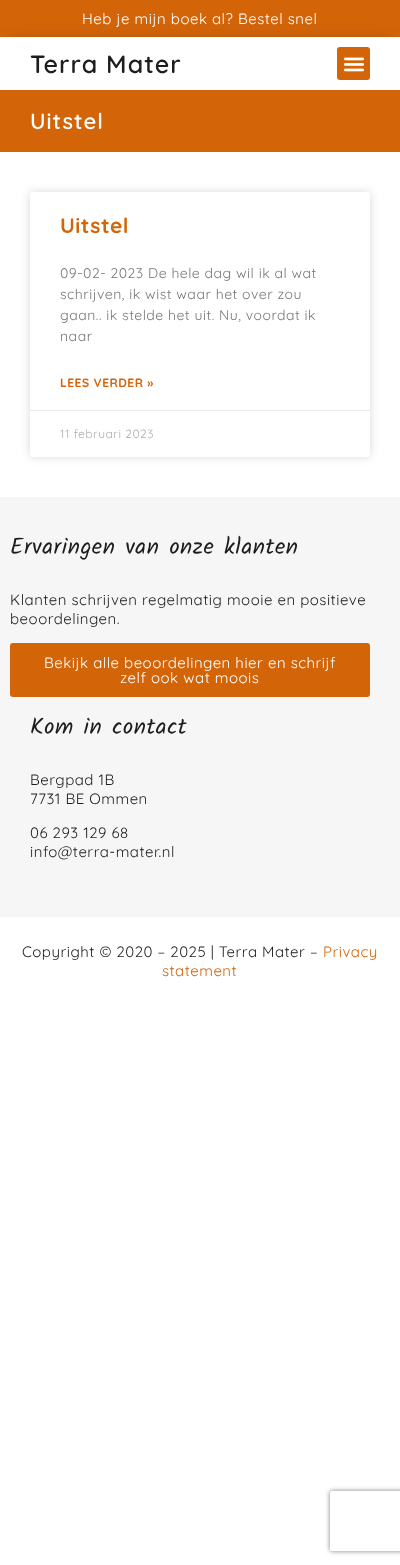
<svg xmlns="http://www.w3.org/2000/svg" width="400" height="1565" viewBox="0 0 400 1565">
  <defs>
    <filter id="blur1" x="-50%" y="-200%" width="200%" height="500%"><feGaussianBlur stdDeviation="10"/></filter>
    <filter id="blur2" x="-50%" y="-200%" width="200%" height="500%"><feGaussianBlur stdDeviation="5"/></filter>
    <clipPath id="clip1"><path d="M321 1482H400V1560H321ZM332 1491H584C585 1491 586 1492 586 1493V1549C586 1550 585 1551 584 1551H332C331 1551 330 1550 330 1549V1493C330 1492 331 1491 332 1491Z" clip-rule="evenodd"/></clipPath>
    <filter id="blur3" x="-50%" y="-200%" width="200%" height="500%"><feGaussianBlur stdDeviation="2.5"/></filter>
  </defs>
  <rect width="100%" height="100%" fill="#ffffff"/>
  <rect x="0" y="0" width="400" height="37" fill="#d36408"/>
  <text x="82" y="24" font-family="Quicksand" font-size="15" letter-spacing="0.5" fill="#ffffff">Heb je mijn boek al? Bestel snel</text>
  <rect x="10" y="47" width="380" height="33" fill="#000000" fill-opacity="0.5" filter="url(#blur1)"/>
  <rect x="0" y="37" width="400" height="53" fill="#ffffff"/>
  <text x="30" y="73" font-family="Quicksand" font-size="25" font-weight="600" letter-spacing="1" fill="#1d1d1d">Terra Mater</text>
  <rect x="337" y="47" width="33" height="33" rx="3" fill="#d36408"/>
  <image x="343" y="57" width="22" height="15" href="img1.png"/>
  <rect x="0" y="90" width="400" height="62" fill="#d36408"/>
  <text x="30" y="129" font-family="Quicksand" font-size="22" font-weight="600" letter-spacing="1" fill="#ffffff">Uitstel</text>
  <rect x="30" y="192" width="340" height="265" rx="3" fill="#000000" fill-opacity="0.15" filter="url(#blur2)"/>
  <rect x="30" y="192" width="340" height="265" rx="3" fill="#ffffff"/>
  <text x="60" y="233" font-family="Quicksand" font-size="21" font-weight="bold" letter-spacing="0.5" fill="#d36408">Uitstel</text>
  <text x="60" y="278" font-family="Quicksand" font-size="14" letter-spacing="0.5" fill="#777777">09-02- 2023 De hele dag wil ik al wat</text>
  <text x="60" y="299" font-family="Quicksand" font-size="14" letter-spacing="0.5" fill="#777777">schrijven, ik wist waar het over zou</text>
  <text x="60" y="320" font-family="Quicksand" font-size="14" letter-spacing="0.5" fill="#777777">gaan.. ik stelde het uit. Nu, voordat ik</text>
  <text x="60" y="341" font-family="Quicksand" font-size="14" letter-spacing="0.5" fill="#777777">naar</text>
  <text x="60" y="387" font-family="Quicksand" font-size="12" font-weight="bold" letter-spacing="0.5" fill="#d36408">LEES VERDER »</text>
  <rect x="30" y="410" width="340" height="1" fill="#eaeaea"/>
  <text x="60" y="438" font-family="Quicksand" font-size="12" letter-spacing="0.5" fill="#adadad">11 februari 2023</text>
  <rect x="0" y="497" width="400" height="420" fill="#f6f6f6"/>
  <text x="10" y="554" font-family="Kalam" font-size="23" letter-spacing="0.5" fill="#1d1d1d">Ervaringen van onze klanten</text>
  <text x="10" y="605" font-family="Quicksand" font-size="15" letter-spacing="0.5" fill="#1d1d1d">Klanten schrijven regelmatig mooie en positieve</text>
  <text x="10" y="624" font-family="Quicksand" font-size="15" letter-spacing="0.5" fill="#1d1d1d">beoordelingen.</text>
  <rect x="10" y="643" width="360" height="54" rx="3" fill="#d36408"/>
  <text x="44" y="668" font-family="Quicksand" font-size="15" letter-spacing="0.5" fill="#ffffff">Bekijk alle beoordelingen hier en schrijf</text>
  <text x="120" y="683" font-family="Quicksand" font-size="15" letter-spacing="0.5" fill="#ffffff">zelf ook wat moois</text>
  <text x="30" y="734" font-family="Kalam" font-size="23" letter-spacing="0.5" fill="#1d1d1d">Kom in contact</text>
  <text x="30" y="785" font-family="Quicksand" font-size="15" letter-spacing="0.5" fill="#1d1d1d">Bergpad 1B</text>
  <text x="30" y="804" font-family="Quicksand" font-size="15" letter-spacing="0.5" fill="#1d1d1d">7731 BE Ommen</text>
  <text x="30" y="838" font-family="Quicksand" font-size="15" letter-spacing="0.5" fill="#1d1d1d">06 293 129 68</text>
  <text x="30" y="857" font-family="Quicksand" font-size="15" letter-spacing="0.5" fill="#1d1d1d">info@terra-mater.nl</text>
  <text x="22" y="957" font-family="Quicksand" font-size="15" letter-spacing="0.5" fill="#1d1d1d">Copyright © 2020 – 2025 | Terra Mater –</text>
  <text x="323" y="957" font-family="Quicksand" font-size="15" letter-spacing="0.5" fill="#d36408">Privacy</text>
  <text x="162" y="976" font-family="Quicksand" font-size="15" letter-spacing="0.5" fill="#d36408">statement</text>
  <g clip-path="url(#clip1)">
    <rect x="330" y="1491" width="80" height="60" rx="2" fill="#808080" filter="url(#blur3)"/>
  </g>
</svg>
